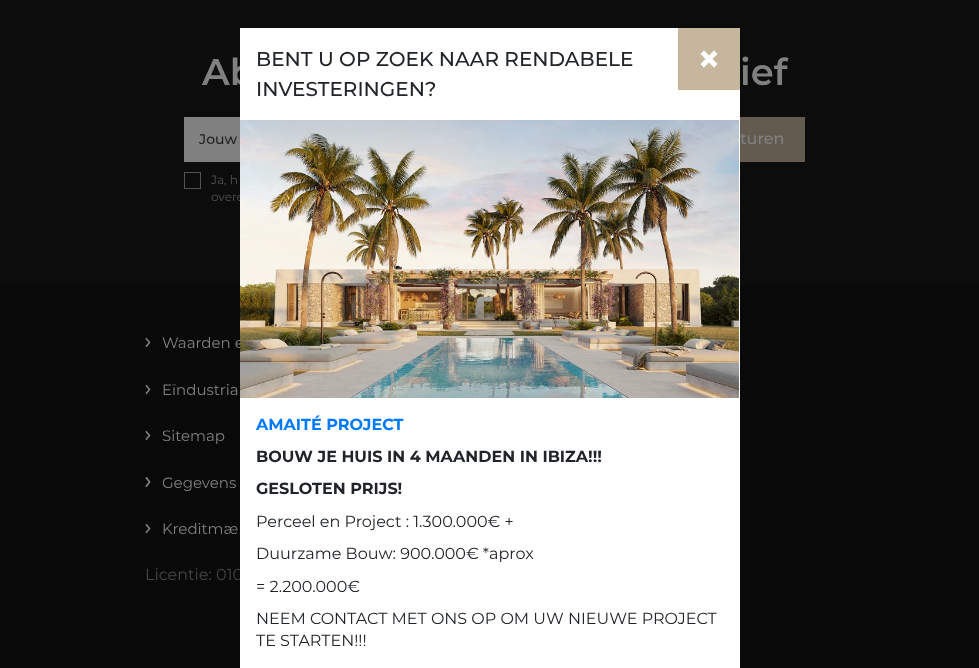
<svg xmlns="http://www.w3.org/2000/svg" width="979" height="668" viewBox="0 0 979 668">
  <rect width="100%" height="100%" fill="#0c0c0c"/>
  <text x="202" y="85" font-family="Montserrat" font-size="37" font-weight="600" fill="#808080">Ab</text>
  <rect x="740" y="117" width="65" height="45" fill="#635b4f"/>
  <text x="740" y="144" font-family="Montserrat" font-size="16" font-weight="500" fill="#808080">turen</text>
  <text x="211" y="201" font-family="Montserrat" font-size="12" fill="#525252">overe</text>
  <rect x="0" y="287" width="979" height="381" fill="#090909"/>
  <text x="162" y="348" font-family="Montserrat" font-size="15" fill="#808080">Waarden e</text>
  <text x="145" y="580" font-family="Montserrat" font-size="16" fill="#454545">Licentie: 010</text>
  <rect x="240" y="28" width="500" height="640" fill="#ffffff"/>
  <text x="256" y="66" font-family="Montserrat" font-size="20" font-weight="500" fill="#212529">BENT U OP ZOEK NAAR RENDABELE</text>
  <text x="256" y="96" font-family="Montserrat" font-size="20" font-weight="500" fill="#212529">INVESTERINGEN?</text>
  <rect x="678" y="28" width="62" height="62" fill="#c6b69e"/>
  <text x="697" y="73" font-family="Montserrat" font-size="40" font-weight="bold" fill="#ffffff">×</text>
  <image x="240" y="120" width="499" height="278" href="img1.png"/>
  <text x="256" y="430" font-family="Montserrat" font-size="16" font-weight="bold" fill="#007bff">AMAITÉ PROJECT</text>
  <text x="256" y="462" font-family="Montserrat" font-size="16" font-weight="bold" fill="#212529">BOUW JE HUIS IN 4 MAANDEN IN IBIZA!!!</text>
  <text x="256" y="494" font-family="Montserrat" font-size="16" font-weight="bold" fill="#212529">GESLOTEN PRIJS!</text>
  <text x="256" y="527" font-family="Montserrat" font-size="16" fill="#212529">Perceel en Project : 1.300.000€ +</text>
  <text x="256" y="559" font-family="Montserrat" font-size="16" fill="#212529">Duurzame Bouw: 900.000€ *aprox</text>
  <text x="256" y="592" font-family="Montserrat" font-size="16" fill="#212529">= 2.200.000€</text>
  <text x="256" y="624" font-family="Montserrat" font-size="16" fill="#212529">NEEM CONTACT MET ONS OP OM UW NIEUWE PROJECT</text>
  <text x="256" y="646" font-family="Montserrat" font-size="16" fill="#212529">TE STARTEN!!!</text>
  <text x="740" y="85" font-family="Montserrat" font-size="37" font-weight="600" fill="#808080">ief</text>
  <rect x="184" y="117" width="56" height="45" fill="#808080"/>
  <text x="199" y="144" font-family="Montserrat" font-size="14" font-weight="500" fill="#1f1f1f">Jouw</text>
  <rect x="184.5" y="172.5" width="16" height="16" fill="none" stroke="#525252"/>
  <text x="211" y="184" font-family="Montserrat" font-size="12" fill="#525252">Ja, h</text>
  <image x="145" y="337" width="6" height="11" href="img2.png"/>
  <image x="145" y="384" width="6" height="11" href="img2.png"/>
  <text x="162" y="395" font-family="Montserrat" font-size="15" fill="#808080">Eïndustria</text>
  <image x="145" y="430" width="6" height="11" href="img2.png"/>
  <text x="162" y="441" font-family="Montserrat" font-size="15" fill="#808080">Sitemap</text>
  <image x="145" y="477" width="6" height="10" href="img3.png"/>
  <text x="162" y="488" font-family="Montserrat" font-size="15" fill="#808080">Gegevens</text>
  <image x="145" y="523" width="6" height="11" href="img2.png"/>
  <text x="162" y="534" font-family="Montserrat" font-size="15" fill="#808080">Kreditmæ</text>
</svg>
